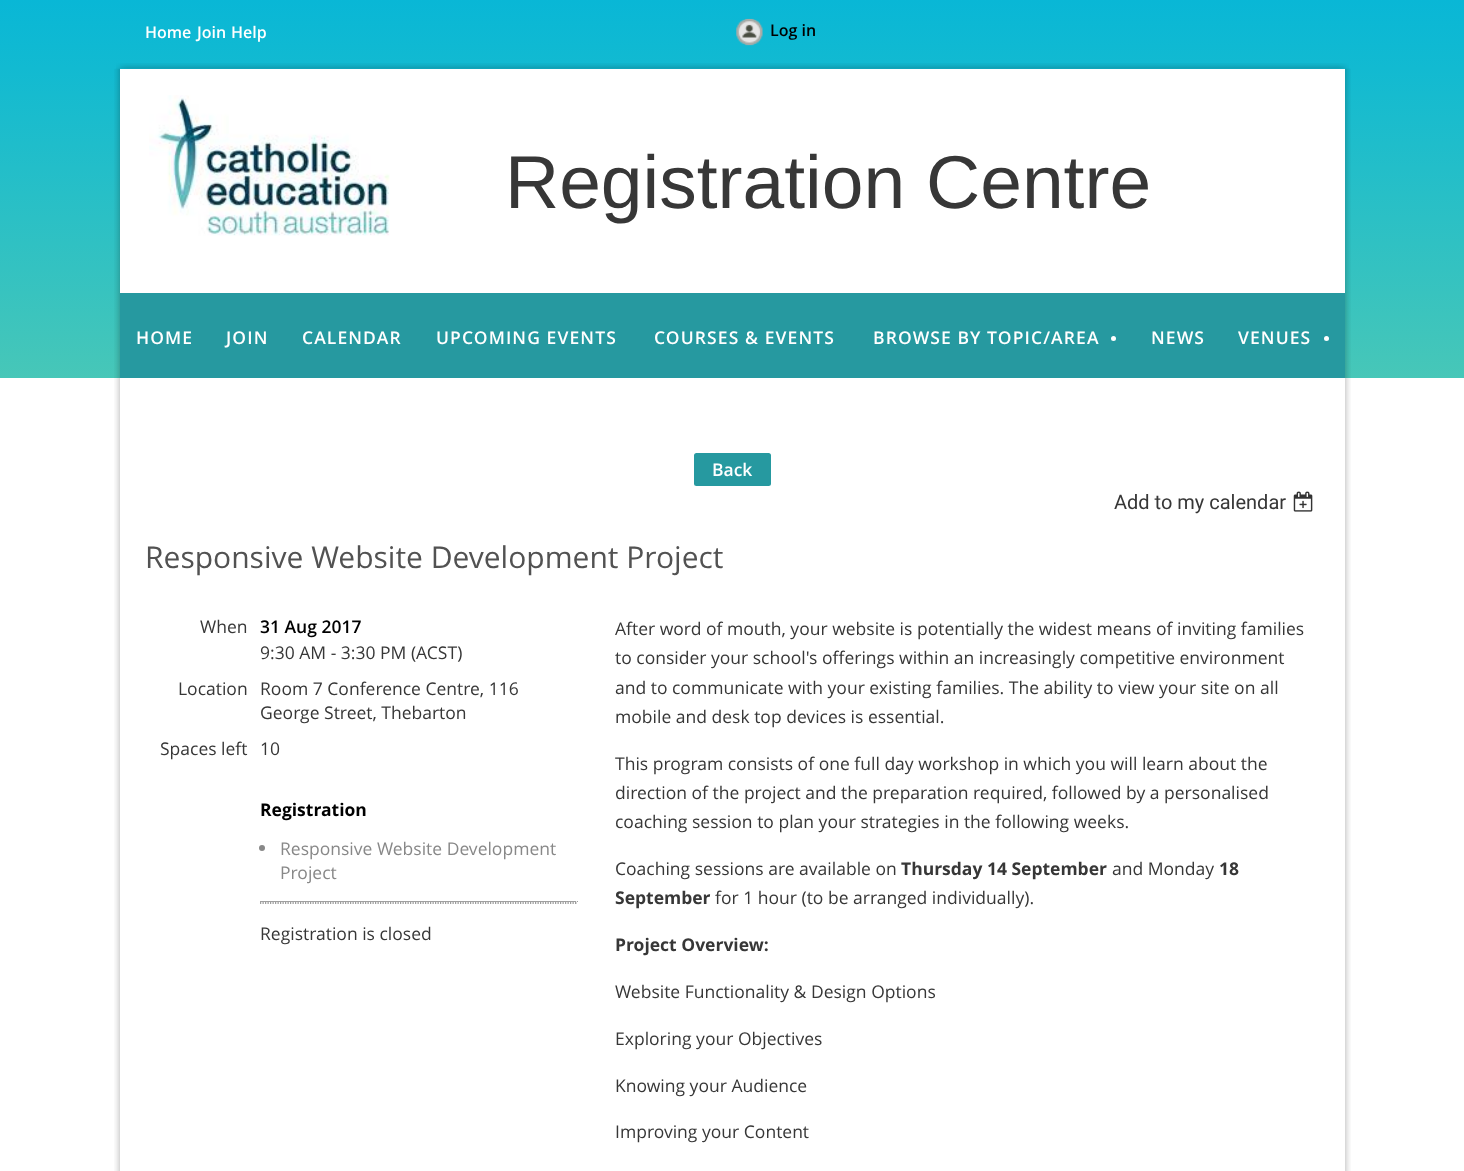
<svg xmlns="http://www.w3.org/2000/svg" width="1464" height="1171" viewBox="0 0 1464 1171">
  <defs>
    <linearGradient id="g1" gradientUnits="userSpaceOnUse" x1="733" y1="0" x2="733" y2="69"><stop offset="0" stop-color="#09b7d6"/><stop offset="1" stop-color="#12bad1"/></linearGradient>
    <linearGradient id="g2" gradientUnits="userSpaceOnUse" x1="733" y1="69" x2="733" y2="293"><stop offset="0" stop-color="#12bad1"/><stop offset="1" stop-color="#38c3bf"/></linearGradient>
    <linearGradient id="g3" gradientUnits="userSpaceOnUse" x1="733" y1="292" x2="733" y2="378"><stop offset="0" stop-color="#38c3bf"/><stop offset="1" stop-color="#47c7b8"/></linearGradient>
  </defs>
  <rect width="100%" height="100%" fill="#ffffff"/>
  <rect x="0" y="0" width="1464" height="69" fill="url(#g1)"/>
  <text x="145" y="38" font-family="Open Sans" font-size="16" font-weight="600" fill="#ffffff">Home</text>
  <text x="197" y="38" font-family="Open Sans" font-size="16" font-weight="600" fill="#ffffff">Join</text>
  <text x="231" y="38" font-family="Open Sans" font-size="16" font-weight="600" fill="#ffffff">Help</text>
  <image x="736" y="18" width="27" height="28" href="img1.png"/>
  <text x="770" y="36" font-family="Open Sans" font-size="16" font-weight="600" fill="#000000">Log in</text>
  <image x="116" y="63" width="1233" height="6" href="img2.png"/>
  <image x="126" y="63" width="1213" height="6" href="img3.png"/>
  <rect x="0" y="69" width="1464" height="224" fill="url(#g2)"/>
  <image x="114" y="68" width="1237" height="225" href="img4.png"/>
  <rect x="120" y="69" width="1225" height="224" fill="#ffffff"/>
  <image x="149" y="95" width="241" height="141" href="img5.png"/>
  <text x="505" y="208" font-family="Liberation Sans" font-size="75" fill="#373737">Registration Centre</text>
  <rect x="0" y="293" width="1464" height="85" fill="url(#g3)"/>
  <image x="114" y="292" width="1237" height="86" href="img6.png"/>
  <image x="114" y="377" width="1237" height="794" href="img7.png"/>
  <rect x="120" y="293" width="1225" height="85" fill="#2699a0"/>
  <text x="136" y="344" font-family="Open Sans" font-size="17.5" font-weight="600" letter-spacing="1.1" fill="#ffffff">HOME</text>
  <text x="226" y="344" font-family="Open Sans" font-size="17.5" font-weight="600" letter-spacing="1.1" fill="#ffffff">JOIN</text>
  <text x="302" y="344" font-family="Open Sans" font-size="17.5" font-weight="600" letter-spacing="1.1" fill="#ffffff">CALENDAR</text>
  <text x="436" y="344" font-family="Open Sans" font-size="17.5" font-weight="600" letter-spacing="1.1" fill="#ffffff">UPCOMING EVENTS</text>
  <text x="654" y="344" font-family="Open Sans" font-size="17.5" font-weight="600" letter-spacing="1.1" fill="#ffffff">COURSES &amp; EVENTS</text>
  <text x="873" y="344" font-family="Open Sans" font-size="17.5" font-weight="600" letter-spacing="1.1" fill="#ffffff">BROWSE BY TOPIC/AREA</text>
  <circle cx="1113.5" cy="338.5" r="2.5" fill="#ffffff"/>
  <text x="1151" y="344" font-family="Open Sans" font-size="17.5" font-weight="600" letter-spacing="1.1" fill="#ffffff">NEWS</text>
  <text x="1238" y="344" font-family="Open Sans" font-size="17.5" font-weight="600" letter-spacing="1.1" fill="#ffffff">VENUES</text>
  <circle cx="1326.5" cy="338.5" r="2.5" fill="#ffffff"/>
  <rect x="694" y="453" width="77" height="33" rx="2.5" fill="#2699a0"/>
  <text x="712" y="476" font-family="Open Sans" font-size="17.5" font-weight="600" fill="#ffffff">Back</text>
  <text x="1114" y="509" font-family="Roboto" font-size="20" fill="#373737">Add to my calendar</text>
  <image x="1293" y="491" width="20" height="21" href="img8.png"/>
  <text x="145" y="568" font-family="Open Sans" font-size="30" fill="#525252">Responsive Website Development Project</text>
  <text x="200" y="633" font-family="Open Sans" font-size="17.5" fill="#373737">When</text>
  <text x="260" y="633" font-family="Open Sans" font-size="17.5" font-weight="600" fill="#000000">31 Aug 2017</text>
  <text x="260" y="659" font-family="Open Sans" font-size="17.5" fill="#373737">9:30 AM - 3:30 PM (ACST)</text>
  <text x="178" y="695" font-family="Open Sans" font-size="17.5" fill="#373737">Location</text>
  <text x="260" y="695" font-family="Open Sans" font-size="17.5" fill="#373737">Room 7 Conference Centre, 116</text>
  <text x="260" y="719" font-family="Open Sans" font-size="17.5" fill="#373737">George Street, Thebarton</text>
  <text x="160" y="755" font-family="Open Sans" font-size="17.5" fill="#373737">Spaces left</text>
  <text x="260" y="755" font-family="Open Sans" font-size="17.5" fill="#373737">10</text>
  <text x="260" y="816" font-family="Open Sans" font-size="17.5" font-weight="bold" fill="#000000">Registration</text>
  <circle cx="262" cy="848" r="3" fill="#888888"/>
  <text x="280" y="855" font-family="Open Sans" font-size="17.5" fill="#888888">Responsive Website Development</text>
  <text x="280" y="879" font-family="Open Sans" font-size="17.5" fill="#888888">Project</text>
  <rect x="260" y="901" width="318" height="1" fill="#9f9f9f"/>
  <rect x="576" y="901" width="1" height="3" fill="#eeeeee"/>
  <path d="M260 903H577.5" fill="none" stroke="#3c3c3c" stroke-width="1.2" stroke-dasharray="1.25 1.25"/>
  <rect x="260" y="901" width="1" height="3" fill="#9f9f9f"/>
  <text x="260" y="940" font-family="Open Sans" font-size="17.5" fill="#373737">Registration is closed</text>
  <text x="615" y="635" font-family="Open Sans" font-size="17.5" fill="#373737">After word of mouth, your website is potentially the widest means of inviting families</text>
  <text x="615" y="664" font-family="Open Sans" font-size="17.5" fill="#373737">to consider your school's offerings within an increasingly competitive environment</text>
  <text x="615" y="694" font-family="Open Sans" font-size="17.5" fill="#373737">and to communicate with your existing families. The ability to view your site on all</text>
  <text x="615" y="723" font-family="Open Sans" font-size="17.5" fill="#373737">mobile and desk top devices is essential.</text>
  <text x="615" y="770" font-family="Open Sans" font-size="17.5" fill="#373737">This program consists of one full day workshop in which you will learn about the</text>
  <text x="615" y="799" font-family="Open Sans" font-size="17.5" fill="#373737">direction of the project and the preparation required, followed by a personalised</text>
  <text x="615" y="828" font-family="Open Sans" font-size="17.5" fill="#373737">coaching session to plan your strategies in the following weeks.</text>
  <text x="615" y="875" font-family="Open Sans" font-size="17.5" fill="#373737">Coaching sessions are available on</text>
  <text x="901" y="875" font-family="Open Sans" font-size="17.5" font-weight="bold" fill="#373737">Thursday 14 September</text>
  <text x="1112" y="875" font-family="Open Sans" font-size="17.5" fill="#373737">and Monday</text>
  <text x="1219" y="875" font-family="Open Sans" font-size="17.5" font-weight="bold" fill="#373737">18</text>
  <text x="615" y="904" font-family="Open Sans" font-size="17.5" font-weight="bold" fill="#373737">September</text>
  <text x="715" y="904" font-family="Open Sans" font-size="17.5" fill="#373737">for 1 hour (to be arranged individually).</text>
  <text x="615" y="951" font-family="Open Sans" font-size="17.5" font-weight="bold" fill="#373737">Project Overview:</text>
  <text x="615" y="998" font-family="Open Sans" font-size="17.5" fill="#373737">Website Functionality &amp; Design Options</text>
  <text x="615" y="1045" font-family="Open Sans" font-size="17.5" fill="#373737">Exploring your Objectives</text>
  <text x="615" y="1092" font-family="Open Sans" font-size="17.5" fill="#373737">Knowing your Audience</text>
  <text x="615" y="1138" font-family="Open Sans" font-size="17.5" fill="#373737">Improving your Content</text>
</svg>
